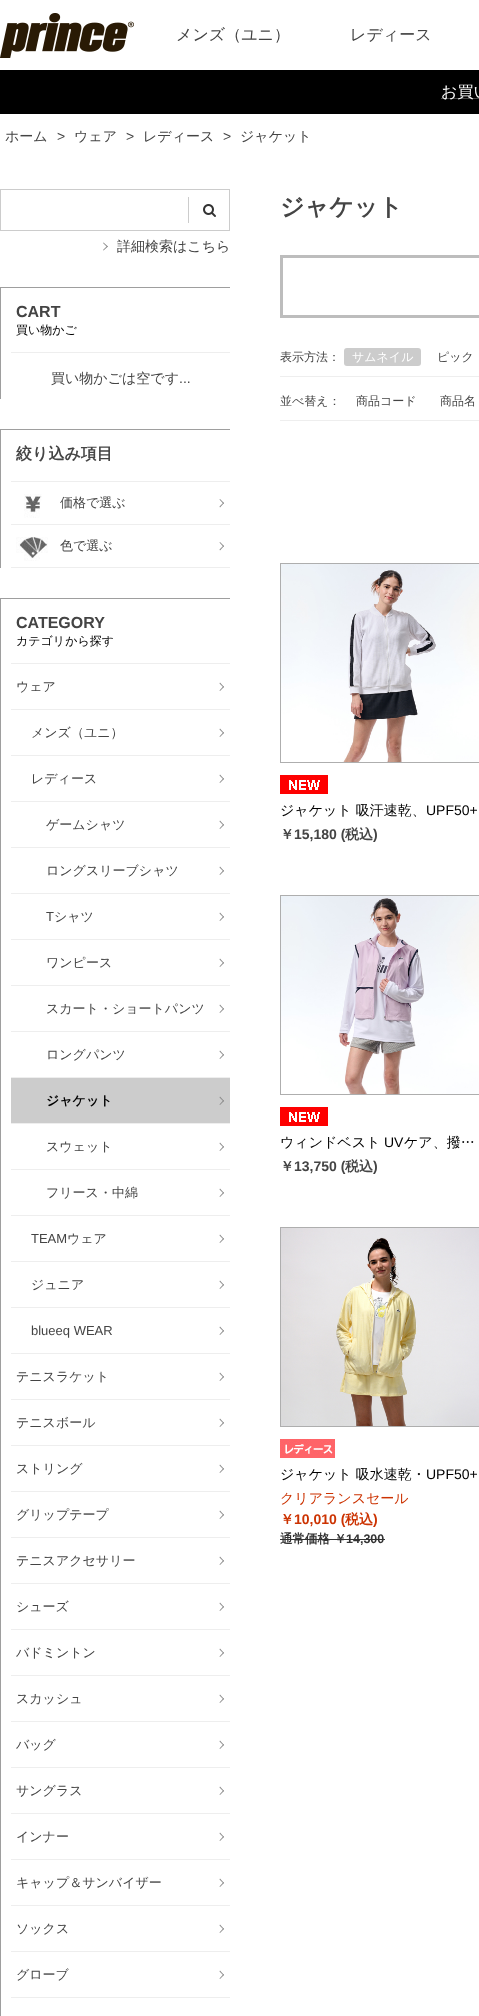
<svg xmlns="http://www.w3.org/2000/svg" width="479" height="2016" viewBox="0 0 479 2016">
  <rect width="100%" height="100%" fill="#ffffff"/>
  <image x="0" y="13" width="134" height="45" href="img1.png"/>
  <text x="176" y="40" font-family="WenQuanYi Zen Hei" font-size="16" font-weight="500" fill="#444444">メンズ（ユニ）</text>
  <text x="350" y="40" font-family="WenQuanYi Zen Hei" font-size="16" font-weight="500" fill="#444444">レディース</text>
  <rect x="0" y="70" width="479" height="44" fill="#000000"/>
  <rect x="441" y="98" width="38" height="1" fill="#444444"/>
  <text x="441" y="97" font-family="WenQuanYi Zen Hei" font-size="16" font-weight="500" fill="#ffffff">お買い</text>
  <text x="5" y="141" font-family="WenQuanYi Zen Hei" font-size="14" font-weight="500" fill="#444444">ホーム</text>
  <text x="57" y="141" font-family="Liberation Sans" font-size="14" fill="#444444">&gt;</text>
  <text x="74" y="141" font-family="WenQuanYi Zen Hei" font-size="14" font-weight="500" fill="#444444">ウェア</text>
  <text x="126" y="141" font-family="Liberation Sans" font-size="14" fill="#444444">&gt;</text>
  <text x="143" y="141" font-family="WenQuanYi Zen Hei" font-size="14" font-weight="500" fill="#444444">レディース</text>
  <text x="223" y="141" font-family="Liberation Sans" font-size="14" fill="#444444">&gt;</text>
  <text x="240" y="141" font-family="WenQuanYi Zen Hei" font-size="14" font-weight="500" fill="#444444">ジャケット</text>
  <rect x="0.5" y="189.5" width="229" height="41" fill="none" stroke="#cccccc"/>
  <rect x="188" y="197" width="1" height="26" fill="#cccccc"/>
  <image x="203" y="204" width="13" height="13" href="img2.png"/>
  <path d="M103.5 242.5L108 246.5L107 247L103 243Z" fill="#888888"/>
  <path d="M107 246L108 246.5L103.5 250.5L103 250Z" fill="#888888"/>
  <text x="117" y="251" font-family="WenQuanYi Zen Hei" font-size="14" font-weight="500" fill="#444444">詳細検索はこちら</text>
  <rect x="0" y="287" width="230" height="1" fill="#9e9e9e"/>
  <rect x="0" y="287" width="1" height="112" fill="#9e9e9e"/>
  <rect x="11" y="352" width="219" height="1" fill="#eeeeee"/>
  <text x="16" y="317" font-family="Liberation Sans" font-size="16" font-weight="bold" fill="#444444">CART</text>
  <text x="16" y="334" font-family="WenQuanYi Zen Hei" font-size="12" font-weight="500" fill="#000000">買い物かご</text>
  <text x="51" y="383" font-family="WenQuanYi Zen Hei" font-size="14" font-weight="500" fill="#444444">買い物かごは空です</text>
  <text x="179" y="383" font-family="Liberation Sans" font-size="14" fill="#444444">...</text>
  <rect x="0" y="429" width="230" height="1" fill="#9e9e9e"/>
  <rect x="0" y="429" width="1" height="139" fill="#9e9e9e"/>
  <rect x="11" y="481" width="219" height="1" fill="#eeeeee"/>
  <text x="16" y="459" font-family="WenQuanYi Zen Hei" font-size="16" font-weight="bold" fill="#444444">絞り込み項目</text>
  <rect x="11" y="524" width="219" height="1" fill="#eeeeee"/>
  <image x="24" y="494" width="18" height="24" href="img3.png"/>
  <text x="60" y="507" font-family="WenQuanYi Zen Hei" font-size="13" font-weight="500" fill="#444444">価格で選ぶ</text>
  <path d="M220 499L224 503L223.5 504L219.5 499.5Z" fill="#888888"/>
  <path d="M223.5 502.5L224 503L220 507.5L219.5 506.5Z" fill="#888888"/>
  <rect x="11" y="567" width="219" height="1" fill="#eeeeee"/>
  <image x="16" y="537" width="32" height="24" href="img4.png"/>
  <text x="60" y="550" font-family="WenQuanYi Zen Hei" font-size="13" font-weight="500" fill="#444444">色で選ぶ</text>
  <path d="M220 542L224 546L223.5 547L219.5 542.5Z" fill="#888888"/>
  <path d="M223.5 545.5L224 546L220 550.5L219.5 549.5Z" fill="#888888"/>
  <rect x="0" y="598" width="230" height="1" fill="#9e9e9e"/>
  <rect x="0" y="598" width="1" height="1418" fill="#9e9e9e"/>
  <rect x="11" y="663" width="219" height="1" fill="#eeeeee"/>
  <text x="16" y="628" font-family="Liberation Sans" font-size="16" font-weight="bold" fill="#444444">CATEGORY</text>
  <text x="16" y="645" font-family="WenQuanYi Zen Hei" font-size="12" font-weight="500" fill="#000000">カテゴリから探す</text>
  <rect x="11" y="709" width="219" height="1" fill="#eeeeee"/>
  <text x="16" y="691" font-family="WenQuanYi Zen Hei" font-size="13" font-weight="500" fill="#444444">ウェア</text>
  <path d="M220 682.5L224 687L223.5 687.5L219.5 683.5Z" fill="#888888"/>
  <path d="M223.5 686L224 687L220 691L219.5 690.5Z" fill="#888888"/>
  <rect x="11" y="755" width="219" height="1" fill="#eeeeee"/>
  <text x="31" y="737" font-family="WenQuanYi Zen Hei" font-size="13" font-weight="500" fill="#444444">メンズ（ユニ）</text>
  <path d="M220 728.5L224 733L223.5 733.5L219.5 729.5Z" fill="#888888"/>
  <path d="M223.5 732L224 733L220 737L219.5 736.5Z" fill="#888888"/>
  <rect x="11" y="801" width="219" height="1" fill="#eeeeee"/>
  <text x="31" y="783" font-family="WenQuanYi Zen Hei" font-size="13" font-weight="500" fill="#444444">レディース</text>
  <path d="M220 774.5L224 779L223.5 779.5L219.5 775.5Z" fill="#888888"/>
  <path d="M223.5 778L224 779L220 783L219.5 782.5Z" fill="#888888"/>
  <rect x="11" y="847" width="219" height="1" fill="#eeeeee"/>
  <text x="46" y="829" font-family="WenQuanYi Zen Hei" font-size="13" font-weight="500" fill="#444444">ゲームシャツ</text>
  <path d="M220 820.5L224 825L223.5 825.5L219.5 821.5Z" fill="#888888"/>
  <path d="M223.5 824L224 825L220 829L219.5 828.5Z" fill="#888888"/>
  <rect x="11" y="893" width="219" height="1" fill="#eeeeee"/>
  <text x="46" y="875" font-family="WenQuanYi Zen Hei" font-size="13" font-weight="500" fill="#444444">ロングスリーブシャツ</text>
  <path d="M220 866.5L224 871L223.5 871.5L219.5 867.5Z" fill="#888888"/>
  <path d="M223.5 870L224 871L220 875L219.5 874.5Z" fill="#888888"/>
  <rect x="11" y="939" width="219" height="1" fill="#eeeeee"/>
  <text x="46" y="921" font-family="Liberation Sans" font-size="13" fill="#444444">T</text>
  <text x="54" y="921" font-family="WenQuanYi Zen Hei" font-size="13" font-weight="500" fill="#444444">シャツ</text>
  <path d="M220 912.5L224 917L223.5 917.5L219.5 913.5Z" fill="#888888"/>
  <path d="M223.5 916L224 917L220 921L219.5 920.5Z" fill="#888888"/>
  <rect x="11" y="985" width="219" height="1" fill="#eeeeee"/>
  <text x="46" y="967" font-family="WenQuanYi Zen Hei" font-size="13" font-weight="500" fill="#444444">ワンピース</text>
  <path d="M220 958.5L224 963L223.5 963.5L219.5 959.5Z" fill="#888888"/>
  <path d="M223.5 962L224 963L220 967L219.5 966.5Z" fill="#888888"/>
  <rect x="11" y="1031" width="219" height="1" fill="#eeeeee"/>
  <text x="46" y="1013" font-family="WenQuanYi Zen Hei" font-size="13" font-weight="500" fill="#444444">スカート・ショートパンツ</text>
  <path d="M220 1004.5L224 1009L223.5 1009.5L219.5 1005.5Z" fill="#888888"/>
  <path d="M223.5 1008L224 1009L220 1013L219.5 1012.5Z" fill="#888888"/>
  <rect x="11" y="1077" width="219" height="1" fill="#eeeeee"/>
  <text x="46" y="1059" font-family="WenQuanYi Zen Hei" font-size="13" font-weight="500" fill="#444444">ロングパンツ</text>
  <path d="M220 1050.5L224 1055L223.5 1055.5L219.5 1051.5Z" fill="#888888"/>
  <path d="M223.5 1054L224 1055L220 1059L219.5 1058.5Z" fill="#888888"/>
  <rect x="11" y="1078" width="219" height="45" fill="#cccccc"/>
  <rect x="11" y="1123" width="219" height="1" fill="#eeeeee"/>
  <text x="46" y="1105" font-family="WenQuanYi Zen Hei" font-size="13" font-weight="bold" fill="#000000">ジャケット</text>
  <path d="M220 1096.5L224 1101L223.5 1101.5L219.5 1097.5Z" fill="#888888"/>
  <path d="M223.5 1100L224 1101L220 1105L219.5 1104.5Z" fill="#888888"/>
  <rect x="11" y="1169" width="219" height="1" fill="#eeeeee"/>
  <text x="46" y="1151" font-family="WenQuanYi Zen Hei" font-size="13" font-weight="500" fill="#444444">スウェット</text>
  <path d="M220 1142.5L224 1147L223.5 1147.5L219.5 1143.5Z" fill="#888888"/>
  <path d="M223.5 1146L224 1147L220 1151L219.5 1150.5Z" fill="#888888"/>
  <rect x="11" y="1215" width="219" height="1" fill="#eeeeee"/>
  <text x="46" y="1197" font-family="WenQuanYi Zen Hei" font-size="13" font-weight="500" fill="#444444">フリース・中綿</text>
  <path d="M220 1188.5L224 1193L223.5 1193.5L219.5 1189.5Z" fill="#888888"/>
  <path d="M223.5 1192L224 1193L220 1197L219.5 1196.5Z" fill="#888888"/>
  <rect x="11" y="1261" width="219" height="1" fill="#eeeeee"/>
  <text x="31" y="1243" font-family="Liberation Sans" font-size="13" fill="#444444">TEAM</text>
  <text x="67" y="1243" font-family="WenQuanYi Zen Hei" font-size="13" font-weight="500" fill="#444444">ウェア</text>
  <path d="M220 1234.5L224 1239L223.5 1239.5L219.5 1235.5Z" fill="#888888"/>
  <path d="M223.5 1238L224 1239L220 1243L219.5 1242.5Z" fill="#888888"/>
  <rect x="11" y="1307" width="219" height="1" fill="#eeeeee"/>
  <text x="31" y="1289" font-family="WenQuanYi Zen Hei" font-size="13" font-weight="500" fill="#444444">ジュニア</text>
  <path d="M220 1280.5L224 1285L223.5 1285.5L219.5 1281.5Z" fill="#888888"/>
  <path d="M223.5 1284L224 1285L220 1289L219.5 1288.5Z" fill="#888888"/>
  <rect x="11" y="1353" width="219" height="1" fill="#eeeeee"/>
  <text x="31" y="1335" font-family="Liberation Sans" font-size="13" fill="#444444">blueeq WEAR</text>
  <path d="M220 1326.5L224 1331L223.5 1331.5L219.5 1327.5Z" fill="#888888"/>
  <path d="M223.5 1330L224 1331L220 1335L219.5 1334.5Z" fill="#888888"/>
  <rect x="11" y="1399" width="219" height="1" fill="#eeeeee"/>
  <text x="16" y="1381" font-family="WenQuanYi Zen Hei" font-size="13" font-weight="500" fill="#444444">テニスラケット</text>
  <path d="M220 1372.5L224 1377L223.5 1377.5L219.5 1373.5Z" fill="#888888"/>
  <path d="M223.5 1376L224 1377L220 1381L219.5 1380.5Z" fill="#888888"/>
  <rect x="11" y="1445" width="219" height="1" fill="#eeeeee"/>
  <text x="16" y="1427" font-family="WenQuanYi Zen Hei" font-size="13" font-weight="500" fill="#444444">テニスボール</text>
  <path d="M220 1418.5L224 1423L223.5 1423.5L219.5 1419.5Z" fill="#888888"/>
  <path d="M223.5 1422L224 1423L220 1427L219.5 1426.5Z" fill="#888888"/>
  <rect x="11" y="1491" width="219" height="1" fill="#eeeeee"/>
  <text x="16" y="1473" font-family="WenQuanYi Zen Hei" font-size="13" font-weight="500" fill="#444444">ストリング</text>
  <path d="M220 1464.5L224 1469L223.5 1469.5L219.5 1465.5Z" fill="#888888"/>
  <path d="M223.5 1468L224 1469L220 1473L219.5 1472.5Z" fill="#888888"/>
  <rect x="11" y="1537" width="219" height="1" fill="#eeeeee"/>
  <text x="16" y="1519" font-family="WenQuanYi Zen Hei" font-size="13" font-weight="500" fill="#444444">グリップテープ</text>
  <path d="M220 1510.5L224 1515L223.5 1515.5L219.5 1511.5Z" fill="#888888"/>
  <path d="M223.5 1514L224 1515L220 1519L219.5 1518.5Z" fill="#888888"/>
  <rect x="11" y="1583" width="219" height="1" fill="#eeeeee"/>
  <text x="16" y="1565" font-family="WenQuanYi Zen Hei" font-size="13" font-weight="500" fill="#444444">テニスアクセサリー</text>
  <path d="M220 1556.5L224 1561L223.5 1561.5L219.5 1557.5Z" fill="#888888"/>
  <path d="M223.5 1560L224 1561L220 1565L219.5 1564.5Z" fill="#888888"/>
  <rect x="11" y="1629" width="219" height="1" fill="#eeeeee"/>
  <text x="16" y="1611" font-family="WenQuanYi Zen Hei" font-size="13" font-weight="500" fill="#444444">シューズ</text>
  <path d="M220 1602.5L224 1607L223.5 1607.5L219.5 1603.5Z" fill="#888888"/>
  <path d="M223.5 1606L224 1607L220 1611L219.5 1610.5Z" fill="#888888"/>
  <rect x="11" y="1675" width="219" height="1" fill="#eeeeee"/>
  <text x="16" y="1657" font-family="WenQuanYi Zen Hei" font-size="13" font-weight="500" fill="#444444">バドミントン</text>
  <path d="M220 1648.5L224 1653L223.5 1653.5L219.5 1649.5Z" fill="#888888"/>
  <path d="M223.5 1652L224 1653L220 1657L219.5 1656.5Z" fill="#888888"/>
  <rect x="11" y="1721" width="219" height="1" fill="#eeeeee"/>
  <text x="16" y="1703" font-family="WenQuanYi Zen Hei" font-size="13" font-weight="500" fill="#444444">スカッシュ</text>
  <path d="M220 1694.5L224 1699L223.5 1699.5L219.5 1695.5Z" fill="#888888"/>
  <path d="M223.5 1698L224 1699L220 1703L219.5 1702.5Z" fill="#888888"/>
  <rect x="11" y="1767" width="219" height="1" fill="#eeeeee"/>
  <text x="16" y="1749" font-family="WenQuanYi Zen Hei" font-size="13" font-weight="500" fill="#444444">バッグ</text>
  <path d="M220 1740.5L224 1745L223.5 1745.5L219.5 1741.5Z" fill="#888888"/>
  <path d="M223.5 1744L224 1745L220 1749L219.5 1748.5Z" fill="#888888"/>
  <rect x="11" y="1813" width="219" height="1" fill="#eeeeee"/>
  <text x="16" y="1795" font-family="WenQuanYi Zen Hei" font-size="13" font-weight="500" fill="#444444">サングラス</text>
  <path d="M220 1786.5L224 1791L223.5 1791.5L219.5 1787.5Z" fill="#888888"/>
  <path d="M223.5 1790L224 1791L220 1795L219.5 1794.5Z" fill="#888888"/>
  <rect x="11" y="1859" width="219" height="1" fill="#eeeeee"/>
  <text x="16" y="1841" font-family="WenQuanYi Zen Hei" font-size="13" font-weight="500" fill="#444444">インナー</text>
  <path d="M220 1832.5L224 1837L223.5 1837.5L219.5 1833.5Z" fill="#888888"/>
  <path d="M223.5 1836L224 1837L220 1841L219.5 1840.5Z" fill="#888888"/>
  <rect x="11" y="1905" width="219" height="1" fill="#eeeeee"/>
  <text x="16" y="1887" font-family="WenQuanYi Zen Hei" font-size="13" font-weight="500" fill="#444444">キャップ＆サンバイザー</text>
  <path d="M220 1878.5L224 1883L223.5 1883.5L219.5 1879.5Z" fill="#888888"/>
  <path d="M223.5 1882L224 1883L220 1887L219.5 1886.5Z" fill="#888888"/>
  <rect x="11" y="1951" width="219" height="1" fill="#eeeeee"/>
  <text x="16" y="1933" font-family="WenQuanYi Zen Hei" font-size="13" font-weight="500" fill="#444444">ソックス</text>
  <path d="M220 1924.5L224 1929L223.5 1929.5L219.5 1925.5Z" fill="#888888"/>
  <path d="M223.5 1928L224 1929L220 1933L219.5 1932.5Z" fill="#888888"/>
  <rect x="11" y="1997" width="219" height="1" fill="#eeeeee"/>
  <text x="16" y="1979" font-family="WenQuanYi Zen Hei" font-size="13" font-weight="500" fill="#444444">グローブ</text>
  <path d="M220 1970.5L224 1975L223.5 1975.5L219.5 1971.5Z" fill="#888888"/>
  <path d="M223.5 1974L224 1975L220 1979L219.5 1978.5Z" fill="#888888"/>
  <text x="280" y="215" font-family="WenQuanYi Zen Hei" font-size="24" font-weight="bold" fill="#444444">ジャケット</text>
  <rect x="281.5" y="256.5" width="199" height="60" fill="none" stroke="#bdbdbd" stroke-width="3"/>
  <rect x="280" y="376" width="199" height="1" fill="#eeeeee"/>
  <text x="280" y="361" font-family="WenQuanYi Zen Hei" font-size="12" font-weight="500" fill="#444444">表示方法：</text>
  <rect x="344" y="348" width="77" height="18" rx="3" fill="#cccccc"/>
  <text x="352" y="361" font-family="WenQuanYi Zen Hei" font-size="12" font-weight="500" fill="#ffffff">サムネイル</text>
  <text x="437" y="361" font-family="WenQuanYi Zen Hei" font-size="12" font-weight="500" fill="#444444">ピック</text>
  <rect x="280" y="420" width="199" height="1" fill="#eeeeee"/>
  <text x="280" y="405" font-family="WenQuanYi Zen Hei" font-size="12" font-weight="500" fill="#444444">並べ替え：</text>
  <text x="356" y="405" font-family="WenQuanYi Zen Hei" font-size="12" font-weight="500" fill="#444444">商品コード</text>
  <text x="440" y="405" font-family="WenQuanYi Zen Hei" font-size="12" font-weight="500" fill="#444444">商品名</text>
  <rect x="280.5" y="563.5" width="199" height="199" fill="none" stroke="#aeaeae"/>
  <image x="281" y="564" width="198" height="198" href="img5.png"/>
  <image x="280" y="775" width="48" height="19" href="img6.png"/>
  <text x="280" y="815" font-family="WenQuanYi Zen Hei" font-size="14" font-weight="500" fill="#000000">ジャケット 吸汗速乾、</text>
  <text x="426" y="815" font-family="Liberation Sans" font-size="14" fill="#000000">UPF50+</text>
  <text x="280" y="839" font-family="WenQuanYi Zen Hei" font-size="14" font-weight="bold" fill="#444444">￥</text>
  <text x="294" y="839" font-family="Liberation Sans" font-size="14" font-weight="bold" fill="#444444">15,180 (</text>
  <text x="345" y="839" font-family="WenQuanYi Zen Hei" font-size="14" font-weight="bold" fill="#444444">税込</text>
  <text x="373" y="839" font-family="Liberation Sans" font-size="14" font-weight="bold" fill="#444444">)</text>
  <rect x="280.5" y="895.5" width="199" height="199" fill="none" stroke="#aeaeae"/>
  <image x="281" y="896" width="198" height="198" href="img7.png"/>
  <image x="280" y="1107" width="48" height="19" href="img6.png"/>
  <text x="280" y="1147" font-family="WenQuanYi Zen Hei" font-size="14" font-weight="500" fill="#000000">ウィンドベスト</text>
  <text x="384" y="1147" font-family="Liberation Sans" font-size="14" fill="#000000">UV</text>
  <text x="404" y="1147" font-family="WenQuanYi Zen Hei" font-size="14" font-weight="500" fill="#000000">ケア、撥…</text>
  <text x="280" y="1171" font-family="WenQuanYi Zen Hei" font-size="14" font-weight="bold" fill="#444444">￥</text>
  <text x="294" y="1171" font-family="Liberation Sans" font-size="14" font-weight="bold" fill="#444444">13,750 (</text>
  <text x="345" y="1171" font-family="WenQuanYi Zen Hei" font-size="14" font-weight="bold" fill="#444444">税込</text>
  <text x="373" y="1171" font-family="Liberation Sans" font-size="14" font-weight="bold" fill="#444444">)</text>
  <rect x="280.5" y="1227.5" width="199" height="199" fill="none" stroke="#aeaeae"/>
  <image x="281" y="1228" width="198" height="198" href="img8.png"/>
  <image x="280" y="1439" width="55" height="19" href="img9.png"/>
  <text x="280" y="1479" font-family="WenQuanYi Zen Hei" font-size="14" font-weight="500" fill="#000000">ジャケット 吸水速乾・</text>
  <text x="426" y="1479" font-family="Liberation Sans" font-size="14" fill="#000000">UPF50+</text>
  <text x="280" y="1503" font-family="WenQuanYi Zen Hei" font-size="14" font-weight="500" fill="#cc3302">クリアランスセール</text>
  <text x="280" y="1524" font-family="WenQuanYi Zen Hei" font-size="14" font-weight="bold" fill="#cc3302">￥</text>
  <text x="294" y="1524" font-family="Liberation Sans" font-size="14" font-weight="bold" fill="#cc3302">10,010 (</text>
  <text x="345" y="1524" font-family="WenQuanYi Zen Hei" font-size="14" font-weight="bold" fill="#cc3302">税込</text>
  <text x="373" y="1524" font-family="Liberation Sans" font-size="14" font-weight="bold" fill="#cc3302">)</text>
  <text x="280" y="1543" font-family="WenQuanYi Zen Hei" font-size="12.5" font-weight="bold" fill="#333333">通常価格</text>
  <rect x="280" y="1539" width="50" height="1" fill="#333333"/>
  <text x="334" y="1543" font-family="WenQuanYi Zen Hei" font-size="12.5" font-weight="bold" fill="#333333">￥</text>
  <text x="346" y="1543" font-family="Liberation Sans" font-size="12.5" font-weight="bold" fill="#333333">14,300</text>
  <rect x="330" y="1539" width="55" height="1" fill="#333333"/>
</svg>
